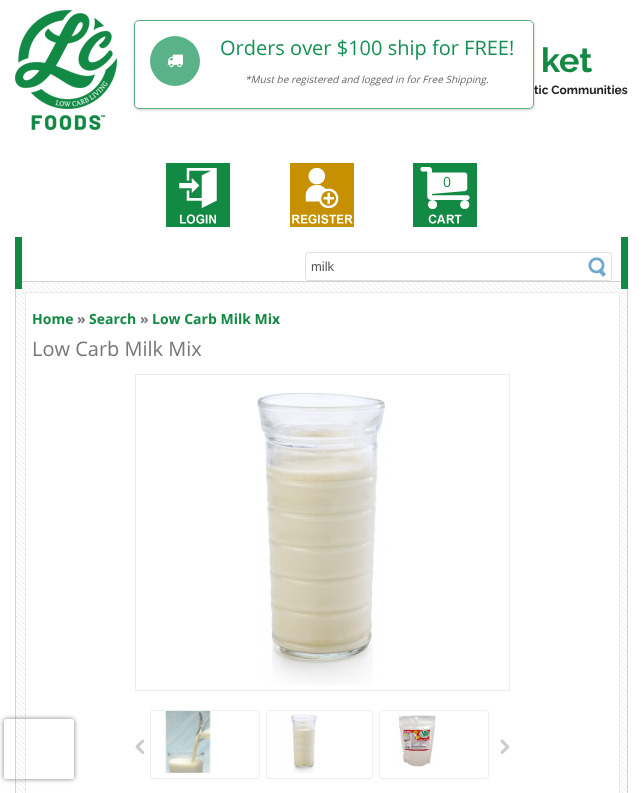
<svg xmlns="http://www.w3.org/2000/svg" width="643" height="793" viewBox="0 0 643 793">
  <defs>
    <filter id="blur1" x="-50%" y="-200%" width="200%" height="500%"><feGaussianBlur stdDeviation="1.5"/></filter>
    <clipPath id="clip1"><path d="M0 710H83V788H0ZM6 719H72C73 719 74 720 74 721V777C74 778 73 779 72 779H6C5 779 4 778 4 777V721C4 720 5 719 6 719Z" clip-rule="evenodd"/></clipPath>
    <filter id="blur2" x="-50%" y="-200%" width="200%" height="500%"><feGaussianBlur stdDeviation="2.5"/></filter>
  </defs>
  <rect width="100%" height="100%" fill="#ffffff"/>
  <rect x="134" y="21" width="400" height="89" rx="5" fill="#000000" fill-opacity="0.2" filter="url(#blur1)"/>
  <rect x="134.5" y="20.5" width="399" height="88" rx="4.5" fill="#ffffff" stroke="#5ab388"/>
  <circle cx="175" cy="61" r="25" fill="#5ab388"/>
  <image x="167" y="54" width="16" height="14" href="img1.png"/>
  <text x="220" y="55" font-family="Open Sans" font-size="20" fill="#159055">Orders over $100 ship for FREE!</text>
  <text x="245" y="83" font-family="Open Sans" font-size="10" font-style="italic" fill="#686868">*Must be registered and logged in for Free Shipping.</text>
  <image x="15" y="10" width="102" height="120" href="img2.png"/>
  <text x="541" y="72" font-family="Raleway" font-size="34" font-weight="bold" fill="#138a44">ket</text>
  <text x="534" y="94" font-family="Raleway" font-size="12" font-weight="bold" fill="#222222">tic Communities</text>
  <image x="166" y="163" width="64" height="64" href="img3.png"/>
  <image x="290" y="163" width="64" height="64" href="img4.png"/>
  <image x="413" y="163" width="64" height="64" href="img5.png"/>
  <text x="443" y="187" font-family="Open Sans" font-size="14" fill="#138a44">0</text>
  <image x="16" y="282" width="611" height="511" href="img7.png"/>
  <rect x="15.5" y="281.5" width="612" height="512" fill="none" stroke="#d2d2d2"/>
  <rect x="621" y="237" width="7" height="52" fill="#138a44"/>
  <rect x="15" y="237" width="7" height="52" fill="#138a44"/>
  <rect x="305.5" y="252.5" width="306" height="28" rx="2.5" fill="none" stroke="#dfdfdf"/>
  <text x="311" y="271" font-family="Liberation Sans" font-size="13" fill="#555555">milk</text>
  <image x="588" y="257" width="18" height="20" href="img6.png"/>
  <rect x="25.5" y="292.5" width="594" height="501" fill="#ffffff" stroke="#eaeaea"/>
  <text x="32" y="324" font-family="Open Sans" font-size="14" font-weight="bold" fill="#138a44">Home</text>
  <text x="77" y="324" font-family="Open Sans" font-size="14" font-weight="bold" fill="#777777">»</text>
  <text x="89" y="324" font-family="Open Sans" font-size="14" font-weight="bold" fill="#138a44">Search</text>
  <text x="140" y="324" font-family="Open Sans" font-size="14" font-weight="bold" fill="#777777">»</text>
  <text x="152" y="324" font-family="Open Sans" font-size="14" font-weight="bold" fill="#138a44">Low Carb Milk Mix</text>
  <text x="32" y="356" font-family="Open Sans" font-size="20" fill="#777777">Low Carb Milk Mix</text>
  <rect x="135.5" y="374.5" width="374" height="316" fill="none" stroke="#eaeaea"/>
  <image x="257" y="392" width="128" height="293" href="img8.png"/>
  <rect x="150.5" y="710.5" width="109" height="68" rx="2.5" fill="none" stroke="#eeeeee"/>
  <image x="151" y="711" width="60" height="62" href="img9.png"/>
  <rect x="266.5" y="710.5" width="106" height="68" rx="2.5" fill="none" stroke="#eeeeee"/>
  <image x="267" y="711" width="50" height="62" href="img10.png"/>
  <rect x="379.5" y="710.5" width="109" height="68" rx="2.5" fill="none" stroke="#eeeeee"/>
  <image x="380" y="711" width="56" height="56" href="img11.png"/>
  <image x="135" y="739" width="10" height="15" href="img12.png"/>
  <image x="500" y="739" width="10" height="15" href="img13.png"/>
  <g clip-path="url(#clip1)">
    <rect x="4" y="719" width="70" height="60" rx="2" fill="#808080" filter="url(#blur2)"/>
  </g>
</svg>
